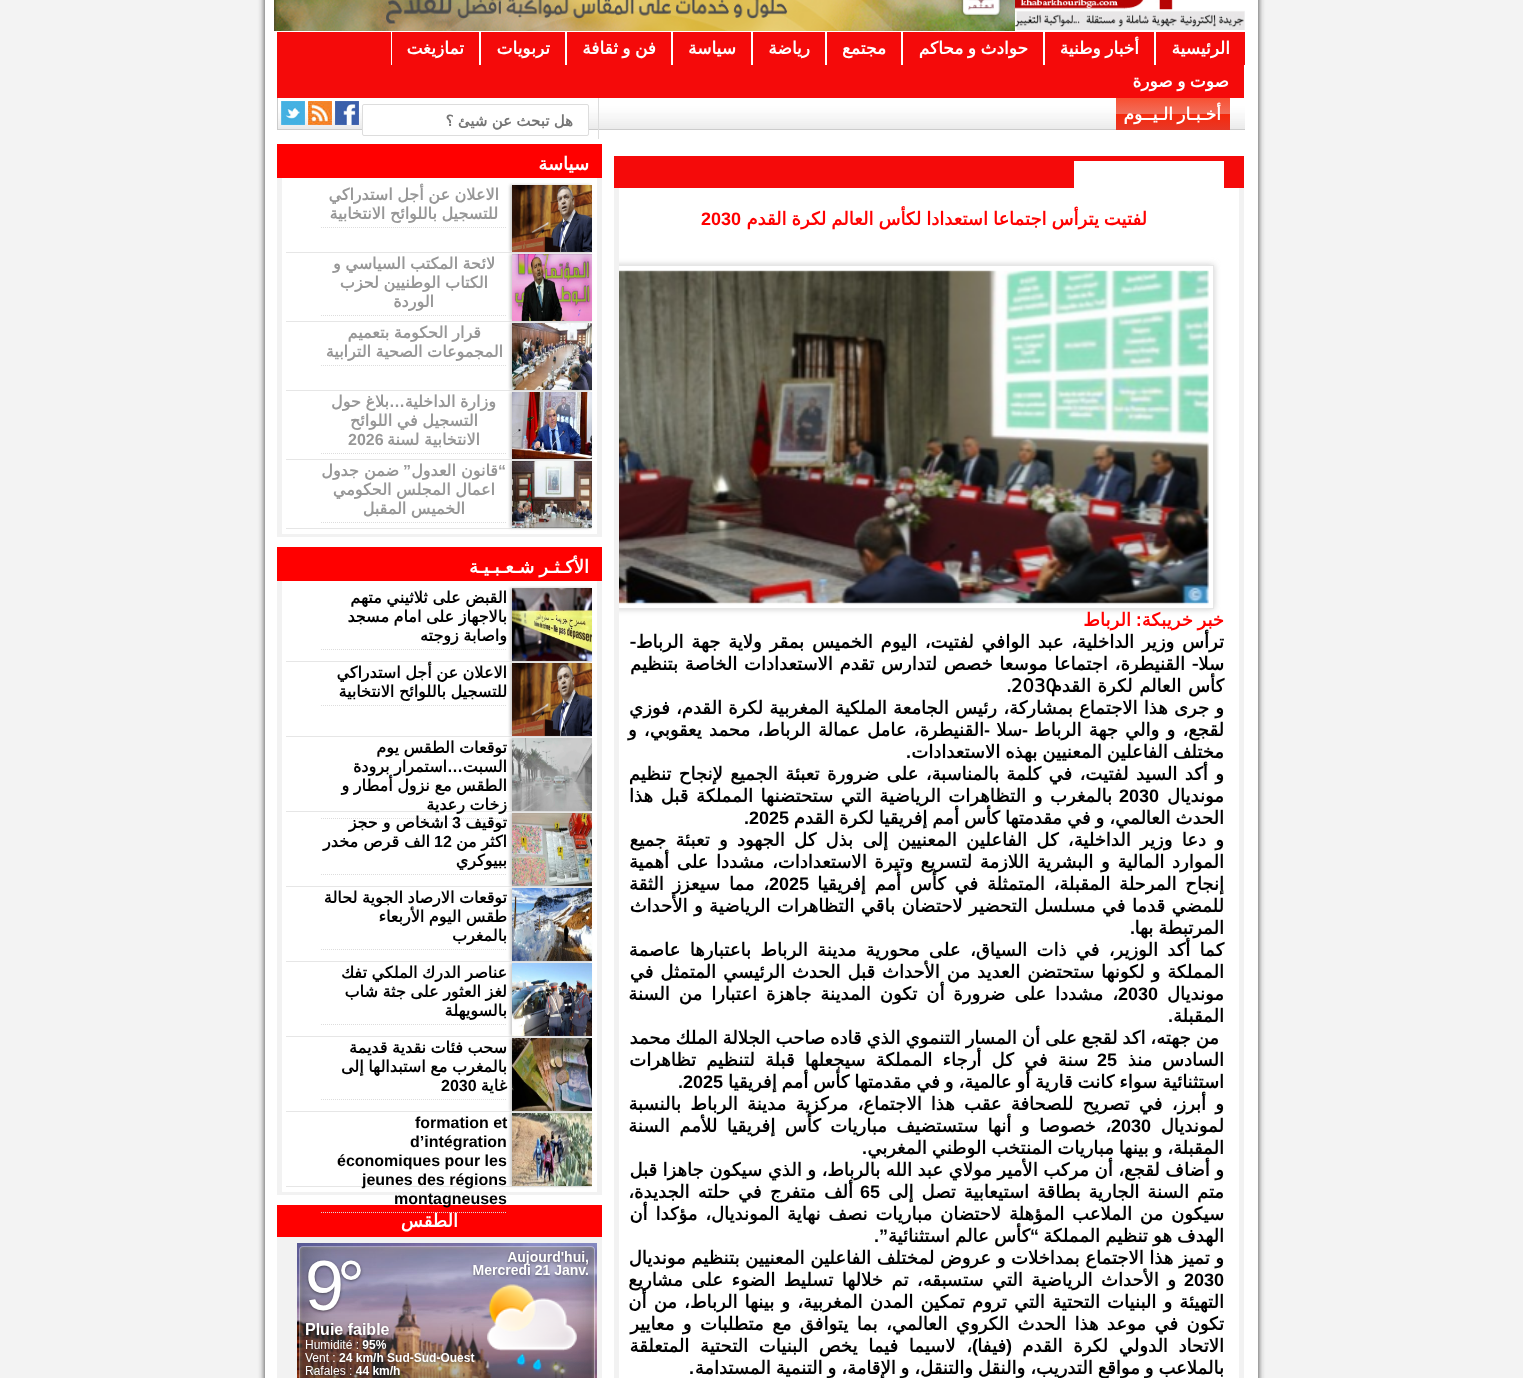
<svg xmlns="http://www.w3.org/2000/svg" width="1523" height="1378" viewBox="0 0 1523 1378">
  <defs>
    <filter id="blur1" x="-50%" y="-200%" width="200%" height="500%"><feGaussianBlur stdDeviation="3"/></filter>
    <linearGradient id="g1" gradientUnits="userSpaceOnUse" x1="1173" y1="98" x2="1173" y2="130"><stop offset="0" stop-color="#f85032"/><stop offset="0.5" stop-color="#f16f5c"/><stop offset="0.51" stop-color="#f6290c"/><stop offset="0.71" stop-color="#f02f17"/><stop offset="1" stop-color="#e73827"/></linearGradient>
    <clipPath id="clip1"><rect x="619" y="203" width="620" height="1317"/></clipPath>
    <clipPath id="clip2"><path d="M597 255H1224V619H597ZM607 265H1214V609H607Z" clip-rule="evenodd"/></clipPath>
    <clipPath id="clip3"><rect x="619" y="203" width="620" height="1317"/></clipPath>
    <filter id="blur2" x="-50%" y="-200%" width="200%" height="500%"><feGaussianBlur stdDeviation="1.5"/></filter>
  </defs>
  <rect width="100%" height="100%" fill="#f3f3f3"/>
  <rect x="265" y="-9" width="993" height="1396" fill="#333333" filter="url(#blur1)"/>
  <rect x="265" y="0" width="993" height="1378" fill="#ffffff"/>
  <image x="1015" y="0" width="230" height="30" href="img1.png"/>
  <image x="274" y="0" width="741" height="31" href="img2.png"/>
  <rect x="277" y="32" width="968" height="66" fill="#f50a0a"/>
  <rect x="1154" y="32" width="2" height="33" fill="#ffffff"/>
  <text x="1230" y="54" font-family="DejaVu Sans" font-size="17" font-weight="bold" direction="rtl" fill="#ffffff">الرئيسية</text>
  <rect x="1043" y="32" width="2" height="33" fill="#ffffff"/>
  <text x="1139" y="54" word-spacing="-1" font-family="DejaVu Sans" font-size="17" font-weight="bold" direction="rtl" fill="#ffffff">أخبار وطنية</text>
  <rect x="901" y="32" width="2" height="33" fill="#ffffff"/>
  <text x="1028" y="54" word-spacing="-1" font-family="DejaVu Sans" font-size="17" font-weight="bold" direction="rtl" fill="#ffffff">حوادث و محاكم</text>
  <rect x="825" y="32" width="2" height="33" fill="#ffffff"/>
  <text x="886" y="54" font-family="DejaVu Sans" font-size="17" font-weight="bold" direction="rtl" fill="#ffffff">مجتمع</text>
  <rect x="751" y="32" width="2" height="33" fill="#ffffff"/>
  <text x="810" y="54" font-family="DejaVu Sans" font-size="17" font-weight="bold" direction="rtl" fill="#ffffff">رياضة</text>
  <rect x="671" y="32" width="2" height="33" fill="#ffffff"/>
  <text x="736" y="54" font-family="DejaVu Sans" font-size="17" font-weight="bold" direction="rtl" fill="#ffffff">سياسة</text>
  <rect x="565" y="32" width="2" height="33" fill="#ffffff"/>
  <text x="656" y="54" word-spacing="-1" font-family="DejaVu Sans" font-size="17" font-weight="bold" direction="rtl" fill="#ffffff">فن و ثقافة</text>
  <rect x="479" y="32" width="2" height="33" fill="#ffffff"/>
  <text x="550" y="54" font-family="DejaVu Sans" font-size="17" font-weight="bold" direction="rtl" fill="#ffffff">تربويات</text>
  <rect x="391" y="32" width="1" height="33" fill="#ffffff"/>
  <text x="464" y="54" font-family="DejaVu Sans" font-size="17" font-weight="bold" direction="rtl" fill="#ffffff">تمازيغت</text>
  <rect x="1244" y="65" width="1" height="33" fill="#ffffff"/>
  <text x="1229" y="87" word-spacing="-1" font-family="DejaVu Sans" font-size="17" font-weight="bold" direction="rtl" fill="#ffffff">صوت و صورة</text>
  <image x="278" y="98" width="967" height="31" href="img3.png"/>
  <rect x="277" y="129" width="968" height="1" fill="#cccccc"/>
  <rect x="277" y="98" width="1" height="32" fill="#cccccc"/>
  <rect x="1116" y="98" width="114" height="32" fill="url(#g1)"/>
  <text x="1221" y="120" word-spacing="-1" font-family="DejaVu Sans" font-size="17" font-weight="bold" direction="rtl" fill="#ffffff">أخـبـار الـيــوم</text>
  <rect x="598" y="98" width="1" height="41" fill="#dddddd"/>
  <rect x="362.5" y="104.5" width="226" height="31" rx="1.5" fill="#ffffff" stroke="#dddddd"/>
  <text x="573" y="126" word-spacing="-0.5" font-family="DejaVu Sans" font-size="15" font-weight="bold" direction="rtl" fill="#757575">هل تبحث عن شيئ ؟</text>
  <image x="335" y="101" width="24" height="24" href="img4.png"/>
  <image x="308" y="101" width="24" height="24" href="img5.png"/>
  <image x="281" y="101" width="24" height="24" href="img6.png"/>
  <rect x="614" y="188" width="630" height="1190" fill="#f2f2f2"/>
  <rect x="614" y="156" width="630" height="32" fill="#f50a0a"/>
  <rect x="1074" y="161" width="150" height="27" fill="#ffffff"/>
  <rect x="619" y="188" width="620" height="1190" fill="#ffffff"/>
  <text x="1147" y="225" word-spacing="-0.75" font-family="DejaVu Sans" font-size="18" font-weight="bold" direction="rtl" fill="#ff0000">لفتيت يترأس اجتماعا استعدادا لكأس العالم لكرة القدم</text>
  <text x="701" y="225" font-family="Liberation Sans" font-size="18" font-weight="bold" fill="#ff0000">2030</text>
  <rect x="277" y="178" width="325" height="359" fill="#f2f2f2"/>
  <rect x="277" y="581" width="325" height="614" fill="#f2f2f2"/>
  <rect x="277" y="547" width="325" height="34" fill="#ff0000"/>
  <g clip-path="url(#clip1)">
    <g clip-path="url(#clip2)">
      <rect x="607" y="265" width="607" height="344" fill="#cccccc" filter="url(#blur1)"/>
    </g>
  </g>
  <g clip-path="url(#clip3)">
    <rect x="607.5" y="265.5" width="606" height="343" fill="none" stroke="#e6e6e6"/>
  </g>
  <image x="619" y="270" width="590" height="335" href="img7.png"/>
  <text x="1224" y="626" word-spacing="-1" font-family="DejaVu Sans" font-size="18" font-weight="bold" direction="rtl" fill="#ff0000">خبر خريبكة: الرباط</text>
  <text x="1224" y="648" word-spacing="2.1" font-family="DejaVu Sans" font-size="18" font-weight="bold" direction="rtl" fill="#000000">ترأس وزير الداخلية، عبد الوافي لفتيت، اليوم الخميس بمقر ولاية جهة الرباط-</text>
  <text x="1224" y="670" word-spacing="1" font-family="DejaVu Sans" font-size="18" font-weight="bold" direction="rtl" fill="#000000">سلا- القنيطرة، اجتماعا موسعا خصص لتدارس تقدم الاستعدادات الخاصة بتنظيم</text>
  <text x="1011" y="692" font-family="DejaVu Sans" font-size="18" font-weight="bold" fill="#000000">2030</text>
  <text x="1224" y="692" word-spacing="1" font-family="DejaVu Sans" font-size="18" font-weight="bold" direction="rtl" fill="#000000">كأس العالم لكرة القدم</text>
  <text x="1006" y="692" font-family="DejaVu Sans" font-size="18" font-weight="bold" fill="#000000">.</text>
  <text x="1224" y="714" word-spacing="0.5" font-family="DejaVu Sans" font-size="18" font-weight="bold" direction="rtl" fill="#000000">و جرى هذا الاجتماع بمشاركة، رئيس الجامعة الملكية المغربية لكرة القدم، فوزي</text>
  <text x="1224" y="736" word-spacing="1.5" font-family="DejaVu Sans" font-size="18" font-weight="bold" direction="rtl" fill="#000000">لقجع، و والي جهة الرباط</text>
  <text x="1028" y="736" font-family="Liberation Sans" font-size="18" font-weight="bold" direction="rtl" fill="#000000">-</text>
  <text x="1022" y="736" font-family="DejaVu Sans" font-size="18" font-weight="bold" direction="rtl" fill="#000000">سلا</text>
  <text x="990" y="736" font-family="Liberation Sans" font-size="18" font-weight="bold" direction="rtl" fill="#000000">-</text>
  <text x="984" y="736" word-spacing="1.5" font-family="DejaVu Sans" font-size="18" font-weight="bold" direction="rtl" fill="#000000">القنيطرة، عامل عمالة الرباط، محمد يعقوبي، و</text>
  <text x="1224" y="758" word-spacing="-0.75" font-family="DejaVu Sans" font-size="18" font-weight="bold" direction="rtl" fill="#000000">مختلف الفاعلين المعنيين بهذه الاستعدادات</text>
  <text x="911" y="758" font-family="Liberation Sans" font-size="18" font-weight="bold" direction="rtl" fill="#000000">.</text>
  <text x="1224" y="780" word-spacing="1.75" font-family="DejaVu Sans" font-size="18" font-weight="bold" direction="rtl" fill="#000000">و أكد السيد لفتيت، في كلمة بالمناسبة، على ضرورة تعبئة الجميع لإنجاح تنظيم</text>
  <text x="1224" y="802" font-family="DejaVu Sans" font-size="18" font-weight="bold" direction="rtl" fill="#000000">مونديال</text>
  <text x="1119" y="802" font-family="Liberation Sans" font-size="18" font-weight="bold" fill="#000000">2030</text>
  <text x="1112" y="802" word-spacing="2" font-family="DejaVu Sans" font-size="18" font-weight="bold" direction="rtl" fill="#000000">بالمغرب و التظاهرات الرياضية التي ستحتضنها المملكة قبل هذا</text>
  <text x="1224" y="824" word-spacing="-0.75" font-family="DejaVu Sans" font-size="18" font-weight="bold" direction="rtl" fill="#000000">الحدث العالمي، و في مقدمتها كأس أمم إفريقيا لكرة القدم</text>
  <text x="744" y="824" font-family="Liberation Sans" font-size="18" font-weight="bold" fill="#000000">.2025</text>
  <text x="1224" y="846" word-spacing="3.6" font-family="DejaVu Sans" font-size="18" font-weight="bold" direction="rtl" fill="#000000">و دعا وزير الداخلية، كل الفاعلين المعنيين إلى بذل كل الجهود و تعبئة جميع</text>
  <text x="1224" y="868" word-spacing="2" font-family="DejaVu Sans" font-size="18" font-weight="bold" direction="rtl" fill="#000000">الموارد المالية و البشرية اللازمة لتسريع وتيرة الاستعدادات، مشددا على أهمية</text>
  <text x="1224" y="890" word-spacing="3" font-family="DejaVu Sans" font-size="18" font-weight="bold" direction="rtl" fill="#000000">إنجاح المرحلة المقبلة، المتمثلة في كأس أمم إفريقيا</text>
  <text x="769" y="890" font-family="Liberation Sans" font-size="18" font-weight="bold" fill="#000000">2025</text>
  <text x="769" y="890" word-spacing="3" font-family="DejaVu Sans" font-size="18" font-weight="bold" direction="rtl" fill="#000000">، مما سيعزز الثقة</text>
  <text x="1224" y="912" word-spacing="0.75" font-family="DejaVu Sans" font-size="18" font-weight="bold" direction="rtl" fill="#000000">للمضي قدما في مسلسل التحضير لاحتضان باقي التظاهرات الرياضية و الأحداث</text>
  <text x="1224" y="934" word-spacing="-0.75" font-family="DejaVu Sans" font-size="18" font-weight="bold" direction="rtl" fill="#000000">المرتبطة بها</text>
  <text x="1135" y="934" font-family="Liberation Sans" font-size="18" font-weight="bold" direction="rtl" fill="#000000">.</text>
  <text x="1224" y="956" word-spacing="3.6" font-family="DejaVu Sans" font-size="18" font-weight="bold" direction="rtl" fill="#000000">كما أكد الوزير، في ذات السياق، على محورية مدينة الرباط باعتبارها عاصمة</text>
  <text x="1224" y="978" word-spacing="1.25" font-family="DejaVu Sans" font-size="18" font-weight="bold" direction="rtl" fill="#000000">المملكة و لكونها ستحتضن العديد من الأحداث قبل الحدث الرئيسي المتمثل في</text>
  <text x="1224" y="1000" font-family="DejaVu Sans" font-size="18" font-weight="bold" direction="rtl" fill="#000000">مونديال</text>
  <text x="1118" y="1000" font-family="Liberation Sans" font-size="18" font-weight="bold" fill="#000000">2030</text>
  <text x="1118" y="1000" word-spacing="3.25" font-family="DejaVu Sans" font-size="18" font-weight="bold" direction="rtl" fill="#000000">، مشددا على ضرورة أن تكون المدينة جاهزة اعتبارا من السنة</text>
  <text x="1224" y="1022" font-family="DejaVu Sans" font-size="18" font-weight="bold" direction="rtl" fill="#000000">المقبلة</text>
  <text x="1173" y="1022" font-family="Liberation Sans" font-size="18" font-weight="bold" direction="rtl" fill="#000000">.</text>
  <text x="1219" y="1044" word-spacing="-0.75" font-family="DejaVu Sans" font-size="18" font-weight="bold" direction="rtl" fill="#000000">من جهته، اكد لقجع على أن المسار التنموي الذي قاده صاحب الجلالة الملك محمد</text>
  <text x="1224" y="1066" word-spacing="4" font-family="DejaVu Sans" font-size="18" font-weight="bold" direction="rtl" fill="#000000">السادس منذ</text>
  <text x="1097" y="1066" font-family="Liberation Sans" font-size="18" font-weight="bold" fill="#000000">25</text>
  <text x="1088" y="1066" word-spacing="4.5" font-family="DejaVu Sans" font-size="18" font-weight="bold" direction="rtl" fill="#000000">سنة في كل أرجاء المملكة سيجعلها قبلة لتنظيم تظاهرات</text>
  <text x="1224" y="1088" word-spacing="-0.75" font-family="DejaVu Sans" font-size="18" font-weight="bold" direction="rtl" fill="#000000">استثنائية سواء كانت قارية أو عالمية، و في مقدمتها كأس أمم إفريقيا</text>
  <text x="678" y="1088" font-family="Liberation Sans" font-size="18" font-weight="bold" fill="#000000">.2025</text>
  <text x="1224" y="1110" word-spacing="3.5" font-family="DejaVu Sans" font-size="18" font-weight="bold" direction="rtl" fill="#000000">و أبرز، في تصريح للصحافة عقب هذا الاجتماع، مركزية مدينة الرباط بالنسبة</text>
  <text x="1224" y="1132" font-family="DejaVu Sans" font-size="18" font-weight="bold" direction="rtl" fill="#000000">لمونديال</text>
  <text x="1111" y="1132" font-family="Liberation Sans" font-size="18" font-weight="bold" fill="#000000">2030</text>
  <text x="1111" y="1132" word-spacing="3.75" font-family="DejaVu Sans" font-size="18" font-weight="bold" direction="rtl" fill="#000000">، خصوصا و أنها ستستضيف مباريات كأس إفريقيا للأمم السنة</text>
  <text x="1224" y="1154" word-spacing="-0.75" font-family="DejaVu Sans" font-size="18" font-weight="bold" direction="rtl" fill="#000000">المقبلة، و بينها مباريات المنتخب الوطني المغربي</text>
  <text x="867" y="1154" font-family="Liberation Sans" font-size="18" font-weight="bold" direction="rtl" fill="#000000">.</text>
  <text x="1224" y="1176" word-spacing="-0.2" font-family="DejaVu Sans" font-size="18" font-weight="bold" direction="rtl" fill="#000000">و أضاف لقجع، أن مركب الأمير مولاي عبد الله بالرباط، و الذي سيكون جاهزا قبل</text>
  <text x="1224" y="1198" word-spacing="2.25" font-family="DejaVu Sans" font-size="18" font-weight="bold" direction="rtl" fill="#000000">متم السنة الجارية بطاقة استيعابية تصل إلى</text>
  <text x="860" y="1198" font-family="Liberation Sans" font-size="18" font-weight="bold" fill="#000000">65</text>
  <text x="853" y="1198" word-spacing="2.5" font-family="DejaVu Sans" font-size="18" font-weight="bold" direction="rtl" fill="#000000">ألف متفرج في حلته الجديدة،</text>
  <text x="1224" y="1220" word-spacing="2.1" font-family="DejaVu Sans" font-size="18" font-weight="bold" direction="rtl" fill="#000000">سيكون من الملاعب المؤهلة لاحتضان مباريات نصف نهاية المونديال، مؤكدا أن</text>
  <text x="1224" y="1242" word-spacing="-0.5" font-family="DejaVu Sans" font-size="18" font-weight="bold" direction="rtl" fill="#000000">الهدف هو تنظيم المملكة</text>
  <text x="1039" y="1242" font-family="Liberation Sans" font-size="18" font-weight="bold" direction="rtl" fill="#000000">“</text>
  <text x="1030" y="1242" word-spacing="-0.5" font-family="DejaVu Sans" font-size="18" font-weight="bold" direction="rtl" fill="#000000">كأس عالم استثنائية</text>
  <text x="888" y="1242" font-family="Liberation Sans" font-size="18" font-weight="bold" direction="rtl" fill="#000000">”.</text>
  <text x="1224" y="1264" word-spacing="-0.1" font-family="DejaVu Sans" font-size="18" font-weight="bold" direction="rtl" fill="#000000">و تميز هذا الاجتماع بمداخلات و عروض لمختلف الفاعلين المعنيين بتنظيم مونديال</text>
  <text x="1184" y="1286" font-family="Liberation Sans" font-size="18" font-weight="bold" fill="#000000">2030</text>
  <text x="1176" y="1286" word-spacing="2.75" font-family="DejaVu Sans" font-size="18" font-weight="bold" direction="rtl" fill="#000000">و الأحداث الرياضية التي ستسبقه، تم خلالها تسليط الضوء على مشاريع</text>
  <text x="1224" y="1308" word-spacing="1.4" font-family="DejaVu Sans" font-size="18" font-weight="bold" direction="rtl" fill="#000000">التهيئة و البنيات التحتية التي تروم تمكين المدن المغربية، و بينها الرباط، من أن</text>
  <text x="1224" y="1330" word-spacing="2.75" font-family="DejaVu Sans" font-size="18" font-weight="bold" direction="rtl" fill="#000000">تكون في موعد هذا الحدث الكروي العالمي، بما يتوافق مع متطلبات و معايير</text>
  <text x="1224" y="1352" word-spacing="5" font-family="DejaVu Sans" font-size="18" font-weight="bold" direction="rtl" fill="#000000">الاتحاد الدولي لكرة القدم</text>
  <text x="1012" y="1352" font-family="Liberation Sans" font-size="18" font-weight="bold" direction="rtl" fill="#000000">(</text>
  <text x="1006" y="1352" font-family="DejaVu Sans" font-size="18" font-weight="bold" direction="rtl" fill="#000000">فيفا</text>
  <text x="978" y="1352" font-family="Liberation Sans" font-size="18" font-weight="bold" direction="rtl" fill="#000000">)</text>
  <text x="972" y="1352" word-spacing="5" font-family="DejaVu Sans" font-size="18" font-weight="bold" direction="rtl" fill="#000000">، لاسيما فيما يخص البنيات التحتية المتعلقة</text>
  <text x="1224" y="1374" word-spacing="-0.75" font-family="DejaVu Sans" font-size="18" font-weight="bold" direction="rtl" fill="#000000">بالملاعب و مواقع التدريب، والنقل والتنقل، و الإقامة، و التنمية المستدامة</text>
  <text x="694" y="1374" font-family="Liberation Sans" font-size="18" font-weight="bold" direction="rtl" fill="#000000">.</text>
  <rect x="277" y="144" width="325" height="34" fill="#ff0000"/>
  <text x="589" y="170" font-family="DejaVu Sans" font-size="18" font-weight="bold" direction="rtl" fill="#ffffff">سياسة</text>
  <rect x="282" y="178" width="315" height="356" fill="#ffffff"/>
  <rect x="286" y="252" width="306" height="1" fill="#e6e6e6"/>
  <rect x="510" y="185" width="80" height="67" fill="#cccccc" filter="url(#blur2)"/>
  <image x="512" y="185" width="80" height="67" href="img8.png"/>
  <path d="M321 227.5H507" fill="none" stroke="#dddddd" stroke-dasharray="1 1"/>
  <text x="499" y="200" word-spacing="-0.5" font-family="DejaVu Sans" font-size="16" font-weight="bold" direction="rtl" fill="#979797">الاعلان عن أجل استدراكي</text>
  <text x="498" y="219" word-spacing="-0.5" font-family="DejaVu Sans" font-size="16" font-weight="bold" direction="rtl" fill="#979797">للتسجيل باللوائح الانتخابية</text>
  <rect x="286" y="321" width="306" height="1" fill="#e6e6e6"/>
  <rect x="510" y="254" width="80" height="67" fill="#cccccc" filter="url(#blur2)"/>
  <image x="512" y="254" width="80" height="67" href="img9.png"/>
  <path d="M321 315.5H507" fill="none" stroke="#dddddd" stroke-dasharray="1 1"/>
  <text x="495" y="269" word-spacing="-0.5" font-family="DejaVu Sans" font-size="16" font-weight="bold" direction="rtl" fill="#979797">لائحة المكتب السياسي و</text>
  <text x="488" y="288" word-spacing="-0.5" font-family="DejaVu Sans" font-size="16" font-weight="bold" direction="rtl" fill="#979797">الكتاب الوطنيين لحزب</text>
  <text x="434" y="307" font-family="DejaVu Sans" font-size="16" font-weight="bold" direction="rtl" fill="#979797">الوردة</text>
  <rect x="286" y="390" width="306" height="1" fill="#e6e6e6"/>
  <rect x="510" y="323" width="80" height="67" fill="#cccccc" filter="url(#blur2)"/>
  <image x="512" y="323" width="80" height="67" href="img10.png"/>
  <path d="M321 365.5H507" fill="none" stroke="#dddddd" stroke-dasharray="1 1"/>
  <text x="481" y="338" word-spacing="-0.5" font-family="DejaVu Sans" font-size="16" font-weight="bold" direction="rtl" fill="#979797">قرار الحكومة بتعميم</text>
  <text x="503" y="357" word-spacing="-0.5" font-family="DejaVu Sans" font-size="16" font-weight="bold" direction="rtl" fill="#979797">المجموعات الصحية الترابية</text>
  <rect x="286" y="459" width="306" height="1" fill="#e6e6e6"/>
  <rect x="510" y="392" width="80" height="67" fill="#cccccc" filter="url(#blur2)"/>
  <image x="512" y="392" width="80" height="67" href="img11.png"/>
  <path d="M321 453.5H507" fill="none" stroke="#dddddd" stroke-dasharray="1 1"/>
  <text x="496" y="407" word-spacing="-0.5" font-family="DejaVu Sans" font-size="16" font-weight="bold" direction="rtl" fill="#979797">وزارة الداخلية</text>
  <text x="405" y="407" font-family="Liberation Sans" font-size="16" font-weight="bold" direction="rtl" fill="#979797">…</text>
  <text x="389" y="407" word-spacing="-0.5" font-family="DejaVu Sans" font-size="16" font-weight="bold" direction="rtl" fill="#979797">بلاغ حول</text>
  <text x="478" y="426" word-spacing="-0.5" font-family="DejaVu Sans" font-size="16" font-weight="bold" direction="rtl" fill="#979797">التسجيل في اللوائح</text>
  <text x="480" y="445" word-spacing="-0.5" font-family="DejaVu Sans" font-size="16" font-weight="bold" direction="rtl" fill="#979797">الانتخابية لسنة</text>
  <text x="348" y="445" font-family="Liberation Sans" font-size="16" font-weight="bold" fill="#979797">2026</text>
  <rect x="286" y="528" width="306" height="1" fill="#e6e6e6"/>
  <rect x="510" y="461" width="80" height="67" fill="#cccccc" filter="url(#blur2)"/>
  <image x="512" y="461" width="80" height="67" href="img12.png"/>
  <path d="M321 522.5H507" fill="none" stroke="#dddddd" stroke-dasharray="1 1"/>
  <text x="506" y="476" font-family="Liberation Sans" font-size="16" font-weight="bold" direction="rtl" fill="#979797">“</text>
  <text x="498" y="476" font-family="DejaVu Sans" font-size="16" font-weight="bold" direction="rtl" fill="#979797">قانون العدول</text>
  <text x="411" y="476" font-family="Liberation Sans" font-size="16" font-weight="bold" direction="rtl" fill="#979797">”</text>
  <text x="399" y="476" font-family="DejaVu Sans" font-size="16" font-weight="bold" direction="rtl" fill="#979797">ضمن جدول</text>
  <text x="495" y="495" word-spacing="-0.5" font-family="DejaVu Sans" font-size="16" font-weight="bold" direction="rtl" fill="#979797">اعمال المجلس الحكومي</text>
  <text x="465" y="514" word-spacing="-0.5" font-family="DejaVu Sans" font-size="16" font-weight="bold" direction="rtl" fill="#979797">الخميس المقبل</text>
  <text x="589" y="573" word-spacing="-0.75" font-family="DejaVu Sans" font-size="18" font-weight="bold" direction="rtl" fill="#ffffff">الأكـثـر شـعـبـيـة</text>
  <rect x="282" y="581" width="315" height="611" fill="#ffffff"/>
  <rect x="286" y="661" width="306" height="1" fill="#e6e6e6"/>
  <rect x="510" y="588" width="80" height="73" fill="#cccccc" filter="url(#blur2)"/>
  <image x="512" y="588" width="80" height="73" href="img13.png"/>
  <path d="M321 649.5H507" fill="none" stroke="#dddddd" stroke-dasharray="1 1"/>
  <text x="507" y="603" word-spacing="-0.5" font-family="DejaVu Sans" font-size="16" font-weight="bold" direction="rtl" fill="#000000">القبض على ثلاثيني متهم</text>
  <text x="507" y="622" word-spacing="-0.5" font-family="DejaVu Sans" font-size="16" font-weight="bold" direction="rtl" fill="#000000">بالاجهاز على امام مسجد</text>
  <text x="507" y="641" word-spacing="-0.5" font-family="DejaVu Sans" font-size="16" font-weight="bold" direction="rtl" fill="#000000">واصابة زوجته</text>
  <rect x="286" y="736" width="306" height="1" fill="#e6e6e6"/>
  <rect x="510" y="663" width="80" height="73" fill="#cccccc" filter="url(#blur2)"/>
  <image x="512" y="663" width="80" height="73" href="img14.png"/>
  <path d="M321 705.5H507" fill="none" stroke="#dddddd" stroke-dasharray="1 1"/>
  <text x="507" y="678" word-spacing="-0.5" font-family="DejaVu Sans" font-size="16" font-weight="bold" direction="rtl" fill="#000000">الاعلان عن أجل استدراكي</text>
  <text x="507" y="697" word-spacing="-0.5" font-family="DejaVu Sans" font-size="16" font-weight="bold" direction="rtl" fill="#000000">للتسجيل باللوائح الانتخابية</text>
  <rect x="286" y="811" width="306" height="1" fill="#e6e6e6"/>
  <rect x="510" y="738" width="80" height="73" fill="#cccccc" filter="url(#blur2)"/>
  <image x="512" y="738" width="80" height="73" href="img15.png"/>
  <path d="M321 818.5H507" fill="none" stroke="#dddddd" stroke-dasharray="1 1"/>
  <text x="507" y="753" word-spacing="-0.5" font-family="DejaVu Sans" font-size="16" font-weight="bold" direction="rtl" fill="#000000">توقعات الطقس يوم</text>
  <text x="507" y="772" font-family="DejaVu Sans" font-size="16" font-weight="bold" direction="rtl" fill="#000000">السبت</text>
  <text x="463" y="772" font-family="Liberation Sans" font-size="16" font-weight="bold" direction="rtl" fill="#000000">…</text>
  <text x="447" y="772" word-spacing="-0.5" font-family="DejaVu Sans" font-size="16" font-weight="bold" direction="rtl" fill="#000000">استمرار برودة</text>
  <text x="507" y="791" word-spacing="-0.5" font-family="DejaVu Sans" font-size="16" font-weight="bold" direction="rtl" fill="#000000">الطقس مع نزول أمطار و</text>
  <text x="507" y="810" word-spacing="-0.5" font-family="DejaVu Sans" font-size="16" font-weight="bold" direction="rtl" fill="#000000">زخات رعدية</text>
  <rect x="286" y="886" width="306" height="1" fill="#e6e6e6"/>
  <rect x="510" y="813" width="80" height="73" fill="#cccccc" filter="url(#blur2)"/>
  <image x="512" y="813" width="80" height="73" href="img16.png"/>
  <path d="M321 874.5H507" fill="none" stroke="#dddddd" stroke-dasharray="1 1"/>
  <text x="507" y="828" font-family="DejaVu Sans" font-size="16" font-weight="bold" direction="rtl" fill="#000000">توقيف</text>
  <text x="452" y="828" font-family="Liberation Sans" font-size="16" font-weight="bold" fill="#000000">3</text>
  <text x="448" y="828" font-family="DejaVu Sans" font-size="16" font-weight="bold" direction="rtl" fill="#000000">اشخاص و حجز</text>
  <text x="507" y="847" word-spacing="-0.5" font-family="DejaVu Sans" font-size="16" font-weight="bold" direction="rtl" fill="#000000">اكثر من</text>
  <text x="434" y="847" font-family="Liberation Sans" font-size="16" font-weight="bold" fill="#000000">12</text>
  <text x="430" y="847" font-family="DejaVu Sans" font-size="16" font-weight="bold" direction="rtl" fill="#000000">الف قرص مخدر</text>
  <text x="507" y="866" font-family="DejaVu Sans" font-size="16" font-weight="bold" direction="rtl" fill="#000000">ببيوكري</text>
  <rect x="286" y="961" width="306" height="1" fill="#e6e6e6"/>
  <rect x="510" y="888" width="80" height="73" fill="#cccccc" filter="url(#blur2)"/>
  <image x="512" y="888" width="80" height="73" href="img17.png"/>
  <path d="M321 949.5H507" fill="none" stroke="#dddddd" stroke-dasharray="1 1"/>
  <text x="507" y="903" word-spacing="-0.5" font-family="DejaVu Sans" font-size="16" font-weight="bold" direction="rtl" fill="#000000">توقعات الارصاد الجوية لحالة</text>
  <text x="507" y="922" word-spacing="-0.5" font-family="DejaVu Sans" font-size="16" font-weight="bold" direction="rtl" fill="#000000">طقس اليوم الأربعاء</text>
  <text x="507" y="941" font-family="DejaVu Sans" font-size="16" font-weight="bold" direction="rtl" fill="#000000">بالمغرب</text>
  <rect x="286" y="1036" width="306" height="1" fill="#e6e6e6"/>
  <rect x="510" y="963" width="80" height="73" fill="#cccccc" filter="url(#blur2)"/>
  <image x="512" y="963" width="80" height="73" href="img18.png"/>
  <path d="M321 1024.5H507" fill="none" stroke="#dddddd" stroke-dasharray="1 1"/>
  <text x="507" y="978" word-spacing="-0.5" font-family="DejaVu Sans" font-size="16" font-weight="bold" direction="rtl" fill="#000000">عناصر الدرك الملكي تفك</text>
  <text x="507" y="997" word-spacing="-0.5" font-family="DejaVu Sans" font-size="16" font-weight="bold" direction="rtl" fill="#000000">لغز العثور على جثة شاب</text>
  <text x="507" y="1016" font-family="DejaVu Sans" font-size="16" font-weight="bold" direction="rtl" fill="#000000">بالسويهلة</text>
  <rect x="286" y="1111" width="306" height="1" fill="#e6e6e6"/>
  <rect x="510" y="1038" width="80" height="73" fill="#cccccc" filter="url(#blur2)"/>
  <image x="512" y="1038" width="80" height="73" href="img19.png"/>
  <path d="M321 1099.5H507" fill="none" stroke="#dddddd" stroke-dasharray="1 1"/>
  <text x="507" y="1053" word-spacing="-0.5" font-family="DejaVu Sans" font-size="16" font-weight="bold" direction="rtl" fill="#000000">سحب فئات نقدية قديمة</text>
  <text x="507" y="1072" word-spacing="-0.5" font-family="DejaVu Sans" font-size="16" font-weight="bold" direction="rtl" fill="#000000">بالمغرب مع استبدالها إلى</text>
  <text x="507" y="1091" font-family="DejaVu Sans" font-size="16" font-weight="bold" direction="rtl" fill="#000000">غاية</text>
  <text x="441" y="1091" font-family="Liberation Sans" font-size="16" font-weight="bold" fill="#000000">2030</text>
  <rect x="286" y="1186" width="306" height="1" fill="#e6e6e6"/>
  <rect x="510" y="1113" width="80" height="73" fill="#cccccc" filter="url(#blur2)"/>
  <image x="512" y="1113" width="80" height="73" href="img20.png"/>
  <rect x="277" y="1205" width="325" height="32" fill="#ff0000"/>
  <path d="M321 1212.5H507" fill="none" stroke="#dddddd" stroke-dasharray="1 1"/>
  <text x="415" y="1128" font-family="Liberation Sans" font-size="16" font-weight="bold" fill="#000000">formation et</text>
  <text x="410" y="1147" font-family="Liberation Sans" font-size="16" font-weight="bold" fill="#000000">d’intégration</text>
  <text x="337" y="1166" font-family="Liberation Sans" font-size="16" font-weight="bold" fill="#000000">économiques pour les</text>
  <text x="362" y="1185" font-family="Liberation Sans" font-size="16" font-weight="bold" fill="#000000">jeunes des régions</text>
  <text x="394" y="1204" font-family="Liberation Sans" font-size="16" font-weight="bold" fill="#000000">montagneuses</text>
  <rect x="277" y="1237" width="325" height="141" fill="#f2f2f2"/>
  <text x="458" y="1227" font-family="DejaVu Sans" font-size="18" font-weight="bold" direction="rtl" fill="#ffffff">الطقس</text>
  <image x="297" y="1243" width="300" height="135" href="img21.png"/>
</svg>
